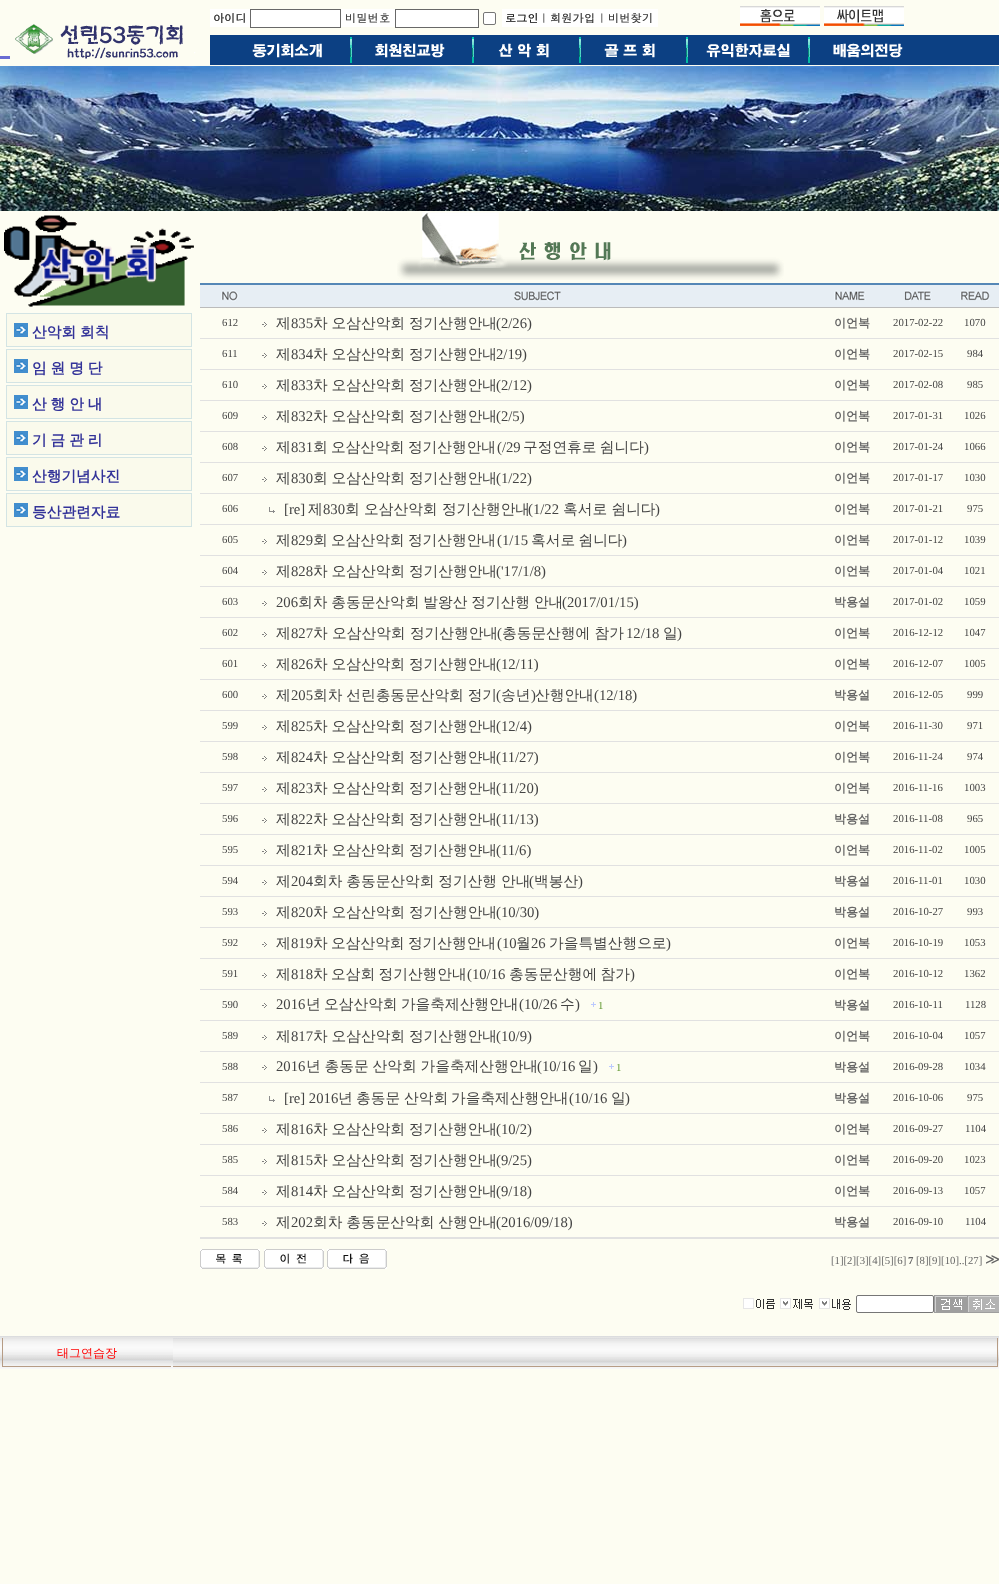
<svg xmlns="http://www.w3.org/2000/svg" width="999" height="1584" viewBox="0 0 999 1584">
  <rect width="100%" height="100%" fill="#fdfdf2"/>
  <image x="210" y="9" width="40" height="18" href="img1.png"/>
  <rect x="250.5" y="9.5" width="90" height="18" fill="#ffffff" stroke="#686868"/>
  <image x="341" y="9" width="54" height="18" href="img2.png"/>
  <rect x="395.5" y="9.5" width="83" height="18" fill="#ffffff" stroke="#686868"/>
  <rect x="483.5" y="12.5" width="12" height="12" rx="1.5" fill="#ffffff" stroke="#767676"/>
  <image x="502" y="9" width="40" height="18" href="img3.png"/>
  <image x="542" y="9" width="4" height="18" href="img4.png"/>
  <image x="546" y="9" width="54" height="18" href="img5.png"/>
  <image x="600" y="9" width="4" height="18" href="img4.png"/>
  <image x="604" y="9" width="54" height="18" href="img6.png"/>
  <image x="740" y="6" width="80" height="20" href="img7.png"/>
  <image x="824" y="6" width="80" height="20" href="img8.png"/>
  <rect x="0" y="56" width="10" height="3" fill="#696cd3"/>
  <image x="10" y="24" width="200" height="35" href="img9.png"/>
  <rect x="210" y="35" width="789" height="30" fill="#0c4083"/>
  <image x="252" y="43" width="70" height="15" href="img10.png"/>
  <image x="350" y="37" width="2" height="26" href="img11.png"/>
  <image x="375" y="43" width="70" height="15" href="img12.png"/>
  <image x="472" y="37" width="2" height="26" href="img11.png"/>
  <image x="498" y="43" width="51" height="15" href="img13.png"/>
  <image x="579" y="37" width="2" height="26" href="img11.png"/>
  <image x="604" y="43" width="51" height="15" href="img14.png"/>
  <image x="686" y="37" width="2" height="26" href="img11.png"/>
  <image x="706" y="43" width="84" height="15" href="img15.png"/>
  <image x="808" y="37" width="2" height="26" href="img11.png"/>
  <image x="833" y="43" width="70" height="15" href="img16.png"/>
  <image x="0" y="66" width="999" height="145" href="img17.png"/>
  <image x="4" y="215" width="190" height="92" href="img18.png"/>
  <rect x="6.5" y="313.5" width="185" height="33" fill="#fafaec" stroke="#d3e4e4"/>
  <image x="14" y="323" width="14" height="14" href="img19.png"/>
  <text x="32" y="337" word-spacing="-0.5" font-family="WenQuanYi Zen Hei" font-size="14.7" font-weight="bold" fill="#333399">산악회 회칙</text>
  <rect x="6.5" y="349.5" width="185" height="33" fill="#fafaec" stroke="#d3e4e4"/>
  <image x="14" y="359" width="14" height="14" href="img19.png"/>
  <text x="32" y="373" word-spacing="-0.5" font-family="WenQuanYi Zen Hei" font-size="14.7" font-weight="bold" fill="#333399">임 원 명 단</text>
  <rect x="6.5" y="385.5" width="185" height="33" fill="#fafaec" stroke="#d3e4e4"/>
  <image x="14" y="395" width="14" height="14" href="img19.png"/>
  <text x="32" y="409" word-spacing="-0.5" font-family="WenQuanYi Zen Hei" font-size="14.7" font-weight="bold" fill="#333399">산 행 안 내</text>
  <rect x="6.5" y="421.5" width="185" height="33" fill="#fafaec" stroke="#d3e4e4"/>
  <image x="14" y="431" width="14" height="14" href="img19.png"/>
  <text x="32" y="445" word-spacing="-0.5" font-family="WenQuanYi Zen Hei" font-size="14.7" font-weight="bold" fill="#333399">기 금 관 리</text>
  <rect x="6.5" y="457.5" width="185" height="33" fill="#fafaec" stroke="#d3e4e4"/>
  <image x="14" y="467" width="14" height="14" href="img19.png"/>
  <text x="32" y="481" font-family="WenQuanYi Zen Hei" font-size="14.7" font-weight="bold" fill="#333399">산행기념사진</text>
  <rect x="6.5" y="493.5" width="185" height="33" fill="#fafaec" stroke="#d3e4e4"/>
  <image x="14" y="503" width="14" height="14" href="img19.png"/>
  <text x="32" y="517" font-family="WenQuanYi Zen Hei" font-size="14.7" font-weight="bold" fill="#333399">등산관련자료</text>
  <image x="397" y="212" width="387" height="68" href="img20.png"/>
  <rect x="200" y="283" width="799" height="2" fill="#5587b6"/>
  <rect x="200" y="285" width="799" height="22" fill="#e7eef4"/>
  <image x="221" y="290" width="18" height="12" href="img21.png"/>
  <image x="514" y="290" width="47" height="12" href="img22.png"/>
  <image x="834" y="290" width="32" height="11" href="img23.png"/>
  <image x="904" y="290" width="28" height="11" href="img24.png"/>
  <image x="960" y="290" width="30" height="11" href="img25.png"/>
  <rect x="200" y="307" width="799" height="1" fill="#bbbbbb"/>
  <text x="222" y="326" font-family="Liberation Serif" font-size="10.75" fill="#444444">612</text>
  <image x="262" y="322" width="5" height="5" href="img26.png"/>
  <text x="276" y="328" font-family="WenQuanYi Zen Hei" font-size="14.7" font-weight="500" fill="#444444">제</text>
  <text x="291" y="328" font-family="Liberation Serif" font-size="14.7" fill="#444444">835</text>
  <text x="313" y="328" word-spacing="-0.5" font-family="WenQuanYi Zen Hei" font-size="14.7" font-weight="500" fill="#444444">차 오삼산악회 정기산행안내</text>
  <text x="496" y="328" font-family="Liberation Serif" font-size="14.7" fill="#444444">(2/26)</text>
  <text x="834" y="327" font-family="WenQuanYi Zen Hei" font-size="12" font-weight="bold" fill="#666666">이언복</text>
  <text x="893" y="326" font-family="Liberation Serif" font-size="10.75" fill="#444444">2017-02-22</text>
  <text x="964" y="326" font-family="Liberation Serif" font-size="10.75" fill="#444444">1070</text>
  <rect x="200" y="338" width="799" height="1" fill="#e1e1e1"/>
  <text x="222" y="357" font-family="Liberation Serif" font-size="10.75" fill="#444444">611</text>
  <image x="262" y="353" width="5" height="5" href="img26.png"/>
  <text x="276" y="359" font-family="WenQuanYi Zen Hei" font-size="14.7" font-weight="500" fill="#444444">제</text>
  <text x="291" y="359" font-family="Liberation Serif" font-size="14.7" fill="#444444">834</text>
  <text x="313" y="359" word-spacing="-0.5" font-family="WenQuanYi Zen Hei" font-size="14.7" font-weight="500" fill="#444444">차 오삼산악회 정기산행안내</text>
  <text x="496" y="359" font-family="Liberation Serif" font-size="14.7" fill="#444444">2/19)</text>
  <text x="834" y="358" font-family="WenQuanYi Zen Hei" font-size="12" font-weight="bold" fill="#666666">이언복</text>
  <text x="893" y="357" font-family="Liberation Serif" font-size="10.75" fill="#444444">2017-02-15</text>
  <text x="967" y="357" font-family="Liberation Serif" font-size="10.75" fill="#444444">984</text>
  <rect x="200" y="369" width="799" height="1" fill="#e1e1e1"/>
  <text x="222" y="388" font-family="Liberation Serif" font-size="10.75" fill="#444444">610</text>
  <image x="262" y="384" width="5" height="5" href="img26.png"/>
  <text x="276" y="390" font-family="WenQuanYi Zen Hei" font-size="14.7" font-weight="500" fill="#444444">제</text>
  <text x="291" y="390" font-family="Liberation Serif" font-size="14.7" fill="#444444">833</text>
  <text x="313" y="390" word-spacing="-0.5" font-family="WenQuanYi Zen Hei" font-size="14.7" font-weight="500" fill="#444444">차 오삼산악회 정기산행안내</text>
  <text x="496" y="390" font-family="Liberation Serif" font-size="14.7" fill="#444444">(2/12)</text>
  <text x="834" y="389" font-family="WenQuanYi Zen Hei" font-size="12" font-weight="bold" fill="#666666">이언복</text>
  <text x="893" y="388" font-family="Liberation Serif" font-size="10.75" fill="#444444">2017-02-08</text>
  <text x="967" y="388" font-family="Liberation Serif" font-size="10.75" fill="#444444">985</text>
  <rect x="200" y="400" width="799" height="1" fill="#e1e1e1"/>
  <text x="222" y="419" font-family="Liberation Serif" font-size="10.75" fill="#444444">609</text>
  <image x="262" y="415" width="5" height="5" href="img26.png"/>
  <text x="276" y="421" font-family="WenQuanYi Zen Hei" font-size="14.7" font-weight="500" fill="#444444">제</text>
  <text x="291" y="421" font-family="Liberation Serif" font-size="14.7" fill="#444444">832</text>
  <text x="313" y="421" word-spacing="-0.5" font-family="WenQuanYi Zen Hei" font-size="14.7" font-weight="500" fill="#444444">차 오삼산악회 정기산행안내</text>
  <text x="496" y="421" font-family="Liberation Serif" font-size="14.7" fill="#444444">(2/5)</text>
  <text x="834" y="420" font-family="WenQuanYi Zen Hei" font-size="12" font-weight="bold" fill="#666666">이언복</text>
  <text x="893" y="419" font-family="Liberation Serif" font-size="10.75" fill="#444444">2017-01-31</text>
  <text x="964" y="419" font-family="Liberation Serif" font-size="10.75" fill="#444444">1026</text>
  <rect x="200" y="431" width="799" height="1" fill="#e1e1e1"/>
  <text x="222" y="450" font-family="Liberation Serif" font-size="10.75" fill="#444444">608</text>
  <image x="262" y="446" width="5" height="5" href="img26.png"/>
  <text x="276" y="452" font-family="WenQuanYi Zen Hei" font-size="14.7" font-weight="500" fill="#444444">제</text>
  <text x="291" y="452" font-family="Liberation Serif" font-size="14.7" fill="#444444">831</text>
  <text x="313" y="452" word-spacing="-1" font-family="WenQuanYi Zen Hei" font-size="14.7" font-weight="500" fill="#444444">회 오삼산악회 정기산행안내</text>
  <text x="497" y="452" font-family="Liberation Serif" font-size="14.7" fill="#444444">(/29</text>
  <text x="523" y="452" word-spacing="-1" font-family="WenQuanYi Zen Hei" font-size="14.7" font-weight="500" fill="#444444">구정연휴로 쉼니다</text>
  <text x="644" y="452" font-family="Liberation Serif" font-size="14.7" fill="#444444">)</text>
  <text x="834" y="451" font-family="WenQuanYi Zen Hei" font-size="12" font-weight="bold" fill="#666666">이언복</text>
  <text x="893" y="450" font-family="Liberation Serif" font-size="10.75" fill="#444444">2017-01-24</text>
  <text x="964" y="450" font-family="Liberation Serif" font-size="10.75" fill="#444444">1066</text>
  <rect x="200" y="462" width="799" height="1" fill="#e1e1e1"/>
  <text x="222" y="481" font-family="Liberation Serif" font-size="10.75" fill="#444444">607</text>
  <image x="262" y="477" width="5" height="5" href="img26.png"/>
  <text x="276" y="483" font-family="WenQuanYi Zen Hei" font-size="14.7" font-weight="500" fill="#444444">제</text>
  <text x="291" y="483" font-family="Liberation Serif" font-size="14.7" fill="#444444">830</text>
  <text x="313" y="483" word-spacing="-0.5" font-family="WenQuanYi Zen Hei" font-size="14.7" font-weight="500" fill="#444444">회 오삼산악회 정기산행안내</text>
  <text x="496" y="483" font-family="Liberation Serif" font-size="14.7" fill="#444444">(1/22)</text>
  <text x="834" y="482" font-family="WenQuanYi Zen Hei" font-size="12" font-weight="bold" fill="#666666">이언복</text>
  <text x="893" y="481" font-family="Liberation Serif" font-size="10.75" fill="#444444">2017-01-17</text>
  <text x="964" y="481" font-family="Liberation Serif" font-size="10.75" fill="#444444">1030</text>
  <rect x="200" y="493" width="799" height="1" fill="#e1e1e1"/>
  <text x="222" y="512" font-family="Liberation Serif" font-size="10.75" fill="#444444">606</text>
  <image x="269" y="507" width="6" height="6" href="img27.png"/>
  <text x="284" y="514" font-family="Liberation Serif" font-size="14.7" fill="#444444">[re]</text>
  <text x="308" y="514" font-family="WenQuanYi Zen Hei" font-size="14.7" font-weight="500" fill="#444444">제</text>
  <text x="323" y="514" font-family="Liberation Serif" font-size="14.7" fill="#444444">830</text>
  <text x="345" y="514" font-family="WenQuanYi Zen Hei" font-size="14.7" font-weight="500" fill="#444444">회 오삼산악회 정기산행안내</text>
  <text x="528" y="514" font-family="Liberation Serif" font-size="14.7" fill="#444444">(1/22</text>
  <text x="563" y="514" font-family="WenQuanYi Zen Hei" font-size="14.7" font-weight="500" fill="#444444">혹서로 쉼니다</text>
  <text x="655" y="514" font-family="Liberation Serif" font-size="14.7" fill="#444444">)</text>
  <text x="834" y="513" font-family="WenQuanYi Zen Hei" font-size="12" font-weight="bold" fill="#666666">이언복</text>
  <text x="893" y="512" font-family="Liberation Serif" font-size="10.75" fill="#444444">2017-01-21</text>
  <text x="967" y="512" font-family="Liberation Serif" font-size="10.75" fill="#444444">975</text>
  <rect x="200" y="524" width="799" height="1" fill="#e1e1e1"/>
  <text x="222" y="543" font-family="Liberation Serif" font-size="10.75" fill="#444444">605</text>
  <image x="262" y="539" width="5" height="5" href="img26.png"/>
  <text x="276" y="545" font-family="WenQuanYi Zen Hei" font-size="14.7" font-weight="500" fill="#444444">제</text>
  <text x="291" y="545" font-family="Liberation Serif" font-size="14.7" fill="#444444">829</text>
  <text x="313" y="545" word-spacing="-1" font-family="WenQuanYi Zen Hei" font-size="14.7" font-weight="500" fill="#444444">회 오삼산악회 정기산행안내</text>
  <text x="497" y="545" font-family="Liberation Serif" font-size="14.7" fill="#444444">(1/15</text>
  <text x="531" y="545" word-spacing="-1" font-family="WenQuanYi Zen Hei" font-size="14.7" font-weight="500" fill="#444444">혹서로 쉼니다</text>
  <text x="622" y="545" font-family="Liberation Serif" font-size="14.7" fill="#444444">)</text>
  <text x="834" y="544" font-family="WenQuanYi Zen Hei" font-size="12" font-weight="bold" fill="#666666">이언복</text>
  <text x="893" y="543" font-family="Liberation Serif" font-size="10.75" fill="#444444">2017-01-12</text>
  <text x="964" y="543" font-family="Liberation Serif" font-size="10.75" fill="#444444">1039</text>
  <rect x="200" y="555" width="799" height="1" fill="#e1e1e1"/>
  <text x="222" y="574" font-family="Liberation Serif" font-size="10.75" fill="#444444">604</text>
  <image x="262" y="570" width="5" height="5" href="img26.png"/>
  <text x="276" y="576" font-family="WenQuanYi Zen Hei" font-size="14.7" font-weight="500" fill="#444444">제</text>
  <text x="291" y="576" font-family="Liberation Serif" font-size="14.7" fill="#444444">828</text>
  <text x="313" y="576" word-spacing="-0.5" font-family="WenQuanYi Zen Hei" font-size="14.7" font-weight="500" fill="#444444">차 오삼산악회 정기산행안내</text>
  <text x="496" y="576" font-family="Liberation Serif" font-size="14.7" fill="#444444">('17/1/8)</text>
  <text x="834" y="575" font-family="WenQuanYi Zen Hei" font-size="12" font-weight="bold" fill="#666666">이언복</text>
  <text x="893" y="574" font-family="Liberation Serif" font-size="10.75" fill="#444444">2017-01-04</text>
  <text x="964" y="574" font-family="Liberation Serif" font-size="10.75" fill="#444444">1021</text>
  <rect x="200" y="586" width="799" height="1" fill="#e1e1e1"/>
  <text x="222" y="605" font-family="Liberation Serif" font-size="10.75" fill="#444444">603</text>
  <image x="262" y="601" width="5" height="5" href="img26.png"/>
  <text x="276" y="607" font-family="Liberation Serif" font-size="14.7" fill="#444444">206</text>
  <text x="298" y="607" word-spacing="-0.5" font-family="WenQuanYi Zen Hei" font-size="14.7" font-weight="500" fill="#444444">회차 총동문산악회 발왕산 정기산행 안내</text>
  <text x="562" y="607" font-family="Liberation Serif" font-size="14.7" fill="#444444">(2017/01/15)</text>
  <text x="834" y="606" font-family="WenQuanYi Zen Hei" font-size="12" font-weight="bold" fill="#666666">박용설</text>
  <text x="893" y="605" font-family="Liberation Serif" font-size="10.75" fill="#444444">2017-01-02</text>
  <text x="964" y="605" font-family="Liberation Serif" font-size="10.75" fill="#444444">1059</text>
  <rect x="200" y="617" width="799" height="1" fill="#e1e1e1"/>
  <text x="222" y="636" font-family="Liberation Serif" font-size="10.75" fill="#444444">602</text>
  <image x="262" y="632" width="5" height="5" href="img26.png"/>
  <text x="276" y="638" font-family="WenQuanYi Zen Hei" font-size="14.7" font-weight="500" fill="#444444">제</text>
  <text x="291" y="638" font-family="Liberation Serif" font-size="14.7" fill="#444444">827</text>
  <text x="313" y="638" font-family="WenQuanYi Zen Hei" font-size="14.7" font-weight="500" fill="#444444">차 오삼산악회 정기산행안내</text>
  <text x="497" y="638" font-family="Liberation Serif" font-size="14.7" fill="#444444">(</text>
  <text x="502" y="638" font-family="WenQuanYi Zen Hei" font-size="14.7" font-weight="500" fill="#444444">총동문산행에 참가</text>
  <text x="626" y="638" font-family="Liberation Serif" font-size="14.7" fill="#444444">12/18</text>
  <text x="663" y="638" font-family="WenQuanYi Zen Hei" font-size="14.7" font-weight="500" fill="#444444">일</text>
  <text x="677" y="638" font-family="Liberation Serif" font-size="14.7" fill="#444444">)</text>
  <text x="834" y="637" font-family="WenQuanYi Zen Hei" font-size="12" font-weight="bold" fill="#666666">이언복</text>
  <text x="893" y="636" font-family="Liberation Serif" font-size="10.75" fill="#444444">2016-12-12</text>
  <text x="964" y="636" font-family="Liberation Serif" font-size="10.75" fill="#444444">1047</text>
  <rect x="200" y="648" width="799" height="1" fill="#e1e1e1"/>
  <text x="222" y="667" font-family="Liberation Serif" font-size="10.75" fill="#444444">601</text>
  <image x="262" y="663" width="5" height="5" href="img26.png"/>
  <text x="276" y="669" font-family="WenQuanYi Zen Hei" font-size="14.7" font-weight="500" fill="#444444">제</text>
  <text x="291" y="669" font-family="Liberation Serif" font-size="14.7" fill="#444444">826</text>
  <text x="313" y="669" word-spacing="-0.5" font-family="WenQuanYi Zen Hei" font-size="14.7" font-weight="500" fill="#444444">차 오삼산악회 정기산행안내</text>
  <text x="496" y="669" font-family="Liberation Serif" font-size="14.7" fill="#444444">(12/11)</text>
  <text x="834" y="668" font-family="WenQuanYi Zen Hei" font-size="12" font-weight="bold" fill="#666666">이언복</text>
  <text x="893" y="667" font-family="Liberation Serif" font-size="10.75" fill="#444444">2016-12-07</text>
  <text x="964" y="667" font-family="Liberation Serif" font-size="10.75" fill="#444444">1005</text>
  <rect x="200" y="679" width="799" height="1" fill="#e1e1e1"/>
  <text x="222" y="698" font-family="Liberation Serif" font-size="10.75" fill="#444444">600</text>
  <image x="262" y="694" width="5" height="5" href="img26.png"/>
  <text x="276" y="700" font-family="WenQuanYi Zen Hei" font-size="14.7" font-weight="500" fill="#444444">제</text>
  <text x="291" y="700" font-family="Liberation Serif" font-size="14.7" fill="#444444">205</text>
  <text x="313" y="700" word-spacing="-0.5" font-family="WenQuanYi Zen Hei" font-size="14.7" font-weight="500" fill="#444444">회차 선린총동문산악회 정기</text>
  <text x="496" y="700" font-family="Liberation Serif" font-size="14.7" fill="#444444">(</text>
  <text x="501" y="700" font-family="WenQuanYi Zen Hei" font-size="14.7" font-weight="500" fill="#444444">송년</text>
  <text x="531" y="700" font-family="Liberation Serif" font-size="14.7" fill="#444444">)</text>
  <text x="535" y="700" font-family="WenQuanYi Zen Hei" font-size="14.7" font-weight="500" fill="#444444">산행안내</text>
  <text x="594" y="700" font-family="Liberation Serif" font-size="14.7" fill="#444444">(12/18)</text>
  <text x="834" y="699" font-family="WenQuanYi Zen Hei" font-size="12" font-weight="bold" fill="#666666">박용설</text>
  <text x="893" y="698" font-family="Liberation Serif" font-size="10.75" fill="#444444">2016-12-05</text>
  <text x="967" y="698" font-family="Liberation Serif" font-size="10.75" fill="#444444">999</text>
  <rect x="200" y="710" width="799" height="1" fill="#e1e1e1"/>
  <text x="222" y="729" font-family="Liberation Serif" font-size="10.75" fill="#444444">599</text>
  <image x="262" y="725" width="5" height="5" href="img26.png"/>
  <text x="276" y="731" font-family="WenQuanYi Zen Hei" font-size="14.7" font-weight="500" fill="#444444">제</text>
  <text x="291" y="731" font-family="Liberation Serif" font-size="14.7" fill="#444444">825</text>
  <text x="313" y="731" word-spacing="-0.5" font-family="WenQuanYi Zen Hei" font-size="14.7" font-weight="500" fill="#444444">차 오삼산악회 정기산행안내</text>
  <text x="496" y="731" font-family="Liberation Serif" font-size="14.7" fill="#444444">(12/4)</text>
  <text x="834" y="730" font-family="WenQuanYi Zen Hei" font-size="12" font-weight="bold" fill="#666666">이언복</text>
  <text x="893" y="729" font-family="Liberation Serif" font-size="10.75" fill="#444444">2016-11-30</text>
  <text x="967" y="729" font-family="Liberation Serif" font-size="10.75" fill="#444444">971</text>
  <rect x="200" y="741" width="799" height="1" fill="#e1e1e1"/>
  <text x="222" y="760" font-family="Liberation Serif" font-size="10.75" fill="#444444">598</text>
  <image x="262" y="756" width="5" height="5" href="img26.png"/>
  <text x="276" y="762" font-family="WenQuanYi Zen Hei" font-size="14.7" font-weight="500" fill="#444444">제</text>
  <text x="291" y="762" font-family="Liberation Serif" font-size="14.7" fill="#444444">824</text>
  <text x="313" y="762" word-spacing="-0.5" font-family="WenQuanYi Zen Hei" font-size="14.7" font-weight="500" fill="#444444">차 오삼산악회 정기산행얀내</text>
  <text x="496" y="762" font-family="Liberation Serif" font-size="14.7" fill="#444444">(11/27)</text>
  <text x="834" y="761" font-family="WenQuanYi Zen Hei" font-size="12" font-weight="bold" fill="#666666">이언복</text>
  <text x="893" y="760" font-family="Liberation Serif" font-size="10.75" fill="#444444">2016-11-24</text>
  <text x="967" y="760" font-family="Liberation Serif" font-size="10.75" fill="#444444">974</text>
  <rect x="200" y="772" width="799" height="1" fill="#e1e1e1"/>
  <text x="222" y="791" font-family="Liberation Serif" font-size="10.75" fill="#444444">597</text>
  <image x="262" y="787" width="5" height="5" href="img26.png"/>
  <text x="276" y="793" font-family="WenQuanYi Zen Hei" font-size="14.7" font-weight="500" fill="#444444">제</text>
  <text x="291" y="793" font-family="Liberation Serif" font-size="14.7" fill="#444444">823</text>
  <text x="313" y="793" word-spacing="-0.5" font-family="WenQuanYi Zen Hei" font-size="14.7" font-weight="500" fill="#444444">차 오삼산악회 정기산행안내</text>
  <text x="496" y="793" font-family="Liberation Serif" font-size="14.7" fill="#444444">(11/20)</text>
  <text x="834" y="792" font-family="WenQuanYi Zen Hei" font-size="12" font-weight="bold" fill="#666666">이언복</text>
  <text x="893" y="791" font-family="Liberation Serif" font-size="10.75" fill="#444444">2016-11-16</text>
  <text x="964" y="791" font-family="Liberation Serif" font-size="10.75" fill="#444444">1003</text>
  <rect x="200" y="803" width="799" height="1" fill="#e1e1e1"/>
  <text x="222" y="822" font-family="Liberation Serif" font-size="10.75" fill="#444444">596</text>
  <image x="262" y="818" width="5" height="5" href="img26.png"/>
  <text x="276" y="824" font-family="WenQuanYi Zen Hei" font-size="14.7" font-weight="500" fill="#444444">제</text>
  <text x="291" y="824" font-family="Liberation Serif" font-size="14.7" fill="#444444">822</text>
  <text x="313" y="824" word-spacing="-0.5" font-family="WenQuanYi Zen Hei" font-size="14.7" font-weight="500" fill="#444444">차 오삼산악회 정기산행안내</text>
  <text x="496" y="824" font-family="Liberation Serif" font-size="14.7" fill="#444444">(11/13)</text>
  <text x="834" y="823" font-family="WenQuanYi Zen Hei" font-size="12" font-weight="bold" fill="#666666">박용설</text>
  <text x="893" y="822" font-family="Liberation Serif" font-size="10.75" fill="#444444">2016-11-08</text>
  <text x="967" y="822" font-family="Liberation Serif" font-size="10.75" fill="#444444">965</text>
  <rect x="200" y="834" width="799" height="1" fill="#e1e1e1"/>
  <text x="222" y="853" font-family="Liberation Serif" font-size="10.75" fill="#444444">595</text>
  <image x="262" y="849" width="5" height="5" href="img26.png"/>
  <text x="276" y="855" font-family="WenQuanYi Zen Hei" font-size="14.7" font-weight="500" fill="#444444">제</text>
  <text x="291" y="855" font-family="Liberation Serif" font-size="14.7" fill="#444444">821</text>
  <text x="313" y="855" word-spacing="-0.5" font-family="WenQuanYi Zen Hei" font-size="14.7" font-weight="500" fill="#444444">차 오삼산악회 정기산행얀내</text>
  <text x="496" y="855" font-family="Liberation Serif" font-size="14.7" fill="#444444">(11/6)</text>
  <text x="834" y="854" font-family="WenQuanYi Zen Hei" font-size="12" font-weight="bold" fill="#666666">이언복</text>
  <text x="893" y="853" font-family="Liberation Serif" font-size="10.75" fill="#444444">2016-11-02</text>
  <text x="964" y="853" font-family="Liberation Serif" font-size="10.75" fill="#444444">1005</text>
  <rect x="200" y="865" width="799" height="1" fill="#e1e1e1"/>
  <text x="222" y="884" font-family="Liberation Serif" font-size="10.75" fill="#444444">594</text>
  <image x="262" y="880" width="5" height="5" href="img26.png"/>
  <text x="276" y="886" font-family="WenQuanYi Zen Hei" font-size="14.7" font-weight="500" fill="#444444">제</text>
  <text x="291" y="886" font-family="Liberation Serif" font-size="14.7" fill="#444444">204</text>
  <text x="313" y="886" word-spacing="-0.5" font-family="WenQuanYi Zen Hei" font-size="14.7" font-weight="500" fill="#444444">회차 총동문산악회 정기산행 안내</text>
  <text x="529" y="886" font-family="Liberation Serif" font-size="14.7" fill="#444444">(</text>
  <text x="534" y="886" font-family="WenQuanYi Zen Hei" font-size="14.7" font-weight="500" fill="#444444">백봉산</text>
  <text x="578" y="886" font-family="Liberation Serif" font-size="14.7" fill="#444444">)</text>
  <text x="834" y="885" font-family="WenQuanYi Zen Hei" font-size="12" font-weight="bold" fill="#666666">박용설</text>
  <text x="893" y="884" font-family="Liberation Serif" font-size="10.75" fill="#444444">2016-11-01</text>
  <text x="964" y="884" font-family="Liberation Serif" font-size="10.75" fill="#444444">1030</text>
  <rect x="200" y="896" width="799" height="1" fill="#e1e1e1"/>
  <text x="222" y="915" font-family="Liberation Serif" font-size="10.75" fill="#444444">593</text>
  <image x="262" y="911" width="5" height="5" href="img26.png"/>
  <text x="276" y="917" font-family="WenQuanYi Zen Hei" font-size="14.7" font-weight="500" fill="#444444">제</text>
  <text x="291" y="917" font-family="Liberation Serif" font-size="14.7" fill="#444444">820</text>
  <text x="313" y="917" word-spacing="-0.5" font-family="WenQuanYi Zen Hei" font-size="14.7" font-weight="500" fill="#444444">차 오삼산악회 정기산행안내</text>
  <text x="496" y="917" font-family="Liberation Serif" font-size="14.7" fill="#444444">(10/30)</text>
  <text x="834" y="916" font-family="WenQuanYi Zen Hei" font-size="12" font-weight="bold" fill="#666666">박용설</text>
  <text x="893" y="915" font-family="Liberation Serif" font-size="10.75" fill="#444444">2016-10-27</text>
  <text x="967" y="915" font-family="Liberation Serif" font-size="10.75" fill="#444444">993</text>
  <rect x="200" y="927" width="799" height="1" fill="#e1e1e1"/>
  <text x="222" y="946" font-family="Liberation Serif" font-size="10.75" fill="#444444">592</text>
  <image x="262" y="942" width="5" height="5" href="img26.png"/>
  <text x="276" y="948" font-family="WenQuanYi Zen Hei" font-size="14.7" font-weight="500" fill="#444444">제</text>
  <text x="291" y="948" font-family="Liberation Serif" font-size="14.7" fill="#444444">819</text>
  <text x="313" y="948" word-spacing="-1" font-family="WenQuanYi Zen Hei" font-size="14.7" font-weight="500" fill="#444444">차 오삼산악회 정기산행안내</text>
  <text x="497" y="948" font-family="Liberation Serif" font-size="14.7" fill="#444444">(10</text>
  <text x="516" y="948" font-family="WenQuanYi Zen Hei" font-size="14.7" font-weight="500" fill="#444444">월</text>
  <text x="531" y="948" font-family="Liberation Serif" font-size="14.7" fill="#444444">26</text>
  <text x="549" y="948" font-family="WenQuanYi Zen Hei" font-size="14.7" font-weight="500" fill="#444444">가을특별산행으로</text>
  <text x="666" y="948" font-family="Liberation Serif" font-size="14.7" fill="#444444">)</text>
  <text x="834" y="947" font-family="WenQuanYi Zen Hei" font-size="12" font-weight="bold" fill="#666666">이언복</text>
  <text x="893" y="946" font-family="Liberation Serif" font-size="10.75" fill="#444444">2016-10-19</text>
  <text x="964" y="946" font-family="Liberation Serif" font-size="10.75" fill="#444444">1053</text>
  <rect x="200" y="958" width="799" height="1" fill="#e1e1e1"/>
  <text x="222" y="977" font-family="Liberation Serif" font-size="10.75" fill="#444444">591</text>
  <image x="262" y="973" width="5" height="5" href="img26.png"/>
  <text x="276" y="979" font-family="WenQuanYi Zen Hei" font-size="14.7" font-weight="500" fill="#444444">제</text>
  <text x="291" y="979" font-family="Liberation Serif" font-size="14.7" fill="#444444">818</text>
  <text x="313" y="979" word-spacing="-1" font-family="WenQuanYi Zen Hei" font-size="14.7" font-weight="500" fill="#444444">차 오삼회 정기산행안내</text>
  <text x="467" y="979" font-family="Liberation Serif" font-size="14.7" fill="#444444">(10/16</text>
  <text x="509" y="979" word-spacing="-1" font-family="WenQuanYi Zen Hei" font-size="14.7" font-weight="500" fill="#444444">총동문산행에 참가</text>
  <text x="630" y="979" font-family="Liberation Serif" font-size="14.7" fill="#444444">)</text>
  <text x="834" y="978" font-family="WenQuanYi Zen Hei" font-size="12" font-weight="bold" fill="#666666">이언복</text>
  <text x="893" y="977" font-family="Liberation Serif" font-size="10.75" fill="#444444">2016-10-12</text>
  <text x="964" y="977" font-family="Liberation Serif" font-size="10.75" fill="#444444">1362</text>
  <rect x="200" y="989" width="799" height="1" fill="#e1e1e1"/>
  <text x="222" y="1008" font-family="Liberation Serif" font-size="10.75" fill="#444444">590</text>
  <image x="262" y="1003" width="5" height="5" href="img26.png"/>
  <text x="276" y="1009" font-family="Liberation Serif" font-size="14.7" fill="#444444">2016</text>
  <text x="306" y="1009" word-spacing="-1" font-family="WenQuanYi Zen Hei" font-size="14.7" font-weight="500" fill="#444444">년 오삼산악회 가을축제산행안내</text>
  <text x="519" y="1009" font-family="Liberation Serif" font-size="14.7" fill="#444444">(10/26</text>
  <text x="560" y="1009" font-family="WenQuanYi Zen Hei" font-size="14.7" font-weight="500" fill="#444444">수</text>
  <text x="575" y="1009" font-family="Liberation Serif" font-size="14.7" fill="#444444">)</text>
  <image x="591" y="1002" width="5" height="5" href="img28.png"/>
  <text x="598" y="1009" font-family="Liberation Serif" font-size="10.75" fill="#639933">1</text>
  <text x="834" y="1009" font-family="WenQuanYi Zen Hei" font-size="12" font-weight="bold" fill="#666666">박용설</text>
  <text x="893" y="1008" font-family="Liberation Serif" font-size="10.75" fill="#444444">2016-10-11</text>
  <text x="965" y="1008" font-family="Liberation Serif" font-size="10.75" fill="#444444">1128</text>
  <rect x="200" y="1020" width="799" height="1" fill="#e1e1e1"/>
  <text x="222" y="1039" font-family="Liberation Serif" font-size="10.75" fill="#444444">589</text>
  <image x="262" y="1035" width="5" height="5" href="img26.png"/>
  <text x="276" y="1041" font-family="WenQuanYi Zen Hei" font-size="14.7" font-weight="500" fill="#444444">제</text>
  <text x="291" y="1041" font-family="Liberation Serif" font-size="14.7" fill="#444444">817</text>
  <text x="313" y="1041" word-spacing="-0.5" font-family="WenQuanYi Zen Hei" font-size="14.7" font-weight="500" fill="#444444">차 오삼산악회 정기산행안내</text>
  <text x="496" y="1041" font-family="Liberation Serif" font-size="14.7" fill="#444444">(10/9)</text>
  <text x="834" y="1040" font-family="WenQuanYi Zen Hei" font-size="12" font-weight="bold" fill="#666666">이언복</text>
  <text x="893" y="1039" font-family="Liberation Serif" font-size="10.75" fill="#444444">2016-10-04</text>
  <text x="964" y="1039" font-family="Liberation Serif" font-size="10.75" fill="#444444">1057</text>
  <rect x="200" y="1051" width="799" height="1" fill="#e1e1e1"/>
  <text x="222" y="1070" font-family="Liberation Serif" font-size="10.75" fill="#444444">588</text>
  <image x="262" y="1065" width="5" height="5" href="img26.png"/>
  <text x="276" y="1071" font-family="Liberation Serif" font-size="14.7" fill="#444444">2016</text>
  <text x="306" y="1071" word-spacing="-0.5" font-family="WenQuanYi Zen Hei" font-size="14.7" font-weight="500" fill="#444444">년 총동문 산악회 가을축제산행안내</text>
  <text x="537" y="1071" font-family="Liberation Serif" font-size="14.7" fill="#444444">(10/16</text>
  <text x="578" y="1071" font-family="WenQuanYi Zen Hei" font-size="14.7" font-weight="500" fill="#444444">일</text>
  <text x="593" y="1071" font-family="Liberation Serif" font-size="14.7" fill="#444444">)</text>
  <image x="609" y="1064" width="5" height="5" href="img28.png"/>
  <text x="616" y="1071" font-family="Liberation Serif" font-size="10.75" fill="#639933">1</text>
  <text x="834" y="1071" font-family="WenQuanYi Zen Hei" font-size="12" font-weight="bold" fill="#666666">박용설</text>
  <text x="893" y="1070" font-family="Liberation Serif" font-size="10.75" fill="#444444">2016-09-28</text>
  <text x="964" y="1070" font-family="Liberation Serif" font-size="10.75" fill="#444444">1034</text>
  <rect x="200" y="1082" width="799" height="1" fill="#e1e1e1"/>
  <text x="222" y="1101" font-family="Liberation Serif" font-size="10.75" fill="#444444">587</text>
  <image x="269" y="1096" width="6" height="6" href="img27.png"/>
  <text x="284" y="1103" font-family="Liberation Serif" font-size="14.7" fill="#444444">[re] 2016</text>
  <text x="338" y="1103" font-family="WenQuanYi Zen Hei" font-size="14.7" font-weight="500" fill="#444444">년</text>
  <text x="356" y="1103" font-family="WenQuanYi Zen Hei" font-size="14.7" font-weight="500" fill="#444444">총동문</text>
  <text x="404" y="1103" font-family="WenQuanYi Zen Hei" font-size="14.7" font-weight="500" fill="#444444">산악회</text>
  <text x="451" y="1103" font-family="WenQuanYi Zen Hei" font-size="14.7" font-weight="500" fill="#444444">가을축제산행안내</text>
  <text x="569" y="1103" font-family="Liberation Serif" font-size="14.7" fill="#444444">(10/16</text>
  <text x="611" y="1103" font-family="WenQuanYi Zen Hei" font-size="14.7" font-weight="500" fill="#444444">일</text>
  <text x="625" y="1103" font-family="Liberation Serif" font-size="14.7" fill="#444444">)</text>
  <text x="834" y="1102" font-family="WenQuanYi Zen Hei" font-size="12" font-weight="bold" fill="#666666">박용설</text>
  <text x="893" y="1101" font-family="Liberation Serif" font-size="10.75" fill="#444444">2016-10-06</text>
  <text x="967" y="1101" font-family="Liberation Serif" font-size="10.75" fill="#444444">975</text>
  <rect x="200" y="1113" width="799" height="1" fill="#e1e1e1"/>
  <text x="222" y="1132" font-family="Liberation Serif" font-size="10.75" fill="#444444">586</text>
  <image x="262" y="1128" width="5" height="5" href="img26.png"/>
  <text x="276" y="1134" font-family="WenQuanYi Zen Hei" font-size="14.7" font-weight="500" fill="#444444">제</text>
  <text x="291" y="1134" font-family="Liberation Serif" font-size="14.7" fill="#444444">816</text>
  <text x="313" y="1134" word-spacing="-0.5" font-family="WenQuanYi Zen Hei" font-size="14.7" font-weight="500" fill="#444444">차 오삼산악회 정기산행안내</text>
  <text x="496" y="1134" font-family="Liberation Serif" font-size="14.7" fill="#444444">(10/2)</text>
  <text x="834" y="1133" font-family="WenQuanYi Zen Hei" font-size="12" font-weight="bold" fill="#666666">이언복</text>
  <text x="893" y="1132" font-family="Liberation Serif" font-size="10.75" fill="#444444">2016-09-27</text>
  <text x="965" y="1132" font-family="Liberation Serif" font-size="10.75" fill="#444444">1104</text>
  <rect x="200" y="1144" width="799" height="1" fill="#e1e1e1"/>
  <text x="222" y="1163" font-family="Liberation Serif" font-size="10.75" fill="#444444">585</text>
  <image x="262" y="1159" width="5" height="5" href="img26.png"/>
  <text x="276" y="1165" font-family="WenQuanYi Zen Hei" font-size="14.7" font-weight="500" fill="#444444">제</text>
  <text x="291" y="1165" font-family="Liberation Serif" font-size="14.7" fill="#444444">815</text>
  <text x="313" y="1165" word-spacing="-0.5" font-family="WenQuanYi Zen Hei" font-size="14.7" font-weight="500" fill="#444444">차 오삼산악회 정기산행안내</text>
  <text x="496" y="1165" font-family="Liberation Serif" font-size="14.7" fill="#444444">(9/25)</text>
  <text x="834" y="1164" font-family="WenQuanYi Zen Hei" font-size="12" font-weight="bold" fill="#666666">이언복</text>
  <text x="893" y="1163" font-family="Liberation Serif" font-size="10.75" fill="#444444">2016-09-20</text>
  <text x="964" y="1163" font-family="Liberation Serif" font-size="10.75" fill="#444444">1023</text>
  <rect x="200" y="1175" width="799" height="1" fill="#e1e1e1"/>
  <text x="222" y="1194" font-family="Liberation Serif" font-size="10.75" fill="#444444">584</text>
  <image x="262" y="1190" width="5" height="5" href="img26.png"/>
  <text x="276" y="1196" font-family="WenQuanYi Zen Hei" font-size="14.7" font-weight="500" fill="#444444">제</text>
  <text x="291" y="1196" font-family="Liberation Serif" font-size="14.7" fill="#444444">814</text>
  <text x="313" y="1196" word-spacing="-0.5" font-family="WenQuanYi Zen Hei" font-size="14.7" font-weight="500" fill="#444444">차 오삼산악회 정기산행안내</text>
  <text x="496" y="1196" font-family="Liberation Serif" font-size="14.7" fill="#444444">(9/18)</text>
  <text x="834" y="1195" font-family="WenQuanYi Zen Hei" font-size="12" font-weight="bold" fill="#666666">이언복</text>
  <text x="893" y="1194" font-family="Liberation Serif" font-size="10.75" fill="#444444">2016-09-13</text>
  <text x="964" y="1194" font-family="Liberation Serif" font-size="10.75" fill="#444444">1057</text>
  <rect x="200" y="1206" width="799" height="1" fill="#e1e1e1"/>
  <text x="222" y="1225" font-family="Liberation Serif" font-size="10.75" fill="#444444">583</text>
  <image x="262" y="1221" width="5" height="5" href="img26.png"/>
  <text x="276" y="1227" font-family="WenQuanYi Zen Hei" font-size="14.7" font-weight="500" fill="#444444">제</text>
  <text x="291" y="1227" font-family="Liberation Serif" font-size="14.7" fill="#444444">202</text>
  <text x="313" y="1227" word-spacing="-0.5" font-family="WenQuanYi Zen Hei" font-size="14.7" font-weight="500" fill="#444444">회차 총동문산악회 산행안내</text>
  <text x="496" y="1227" font-family="Liberation Serif" font-size="14.7" fill="#444444">(2016/09/18)</text>
  <text x="834" y="1226" font-family="WenQuanYi Zen Hei" font-size="12" font-weight="bold" fill="#666666">박용설</text>
  <text x="893" y="1225" font-family="Liberation Serif" font-size="10.75" fill="#444444">2016-09-10</text>
  <text x="965" y="1225" font-family="Liberation Serif" font-size="10.75" fill="#444444">1104</text>
  <rect x="200" y="1237" width="799" height="2" fill="#e1e1e1"/>
  <image x="200" y="1249" width="60" height="20" href="img29.png"/>
  <image x="264" y="1249" width="60" height="20" href="img30.png"/>
  <image x="327" y="1249" width="60" height="20" href="img31.png"/>
  <text x="831" y="1264" font-family="Liberation Serif" font-size="10.75" fill="#666666">[1][2][3][4][5][6]</text>
  <text x="908" y="1264" font-family="Liberation Serif" font-size="10.75" font-weight="bold" fill="#666666">7</text>
  <text x="916" y="1264" font-family="Liberation Serif" font-size="10.75" fill="#666666">[8][9][10]..[27]</text>
  <text x="985" y="1264" font-family="DejaVu Sans" font-size="14.7" fill="#666666">≫</text>
  <image x="743" y="1298" width="32" height="11" href="img32.png"/>
  <image x="780" y="1298" width="33" height="11" href="img33.png"/>
  <image x="819" y="1298" width="32" height="12" href="img34.png"/>
  <rect x="856.5" y="1295.5" width="77" height="17" rx="1.5" fill="#ffffff" stroke="#767676"/>
  <image x="934" y="1295" width="34" height="18" href="img35.png"/>
  <image x="968" y="1295" width="31" height="18" href="img36.png"/>
  <image x="0" y="1336" width="999" height="33" href="img37.png"/>
  <rect x="2" y="1366" width="169" height="1" fill="#b69c85"/>
  <rect x="2" y="1338" width="1" height="29" fill="#b69c85"/>
  <text x="57" y="1357" font-family="WenQuanYi Zen Hei" font-size="12" font-weight="500" fill="#ff0000">태그연습장</text>
  <image x="173" y="1338" width="824" height="28" href="img38.png"/>
  <rect x="997" y="1338" width="1" height="29" fill="#b69c85"/>
  <rect x="173" y="1366" width="825" height="1" fill="#b69c85"/>
</svg>
